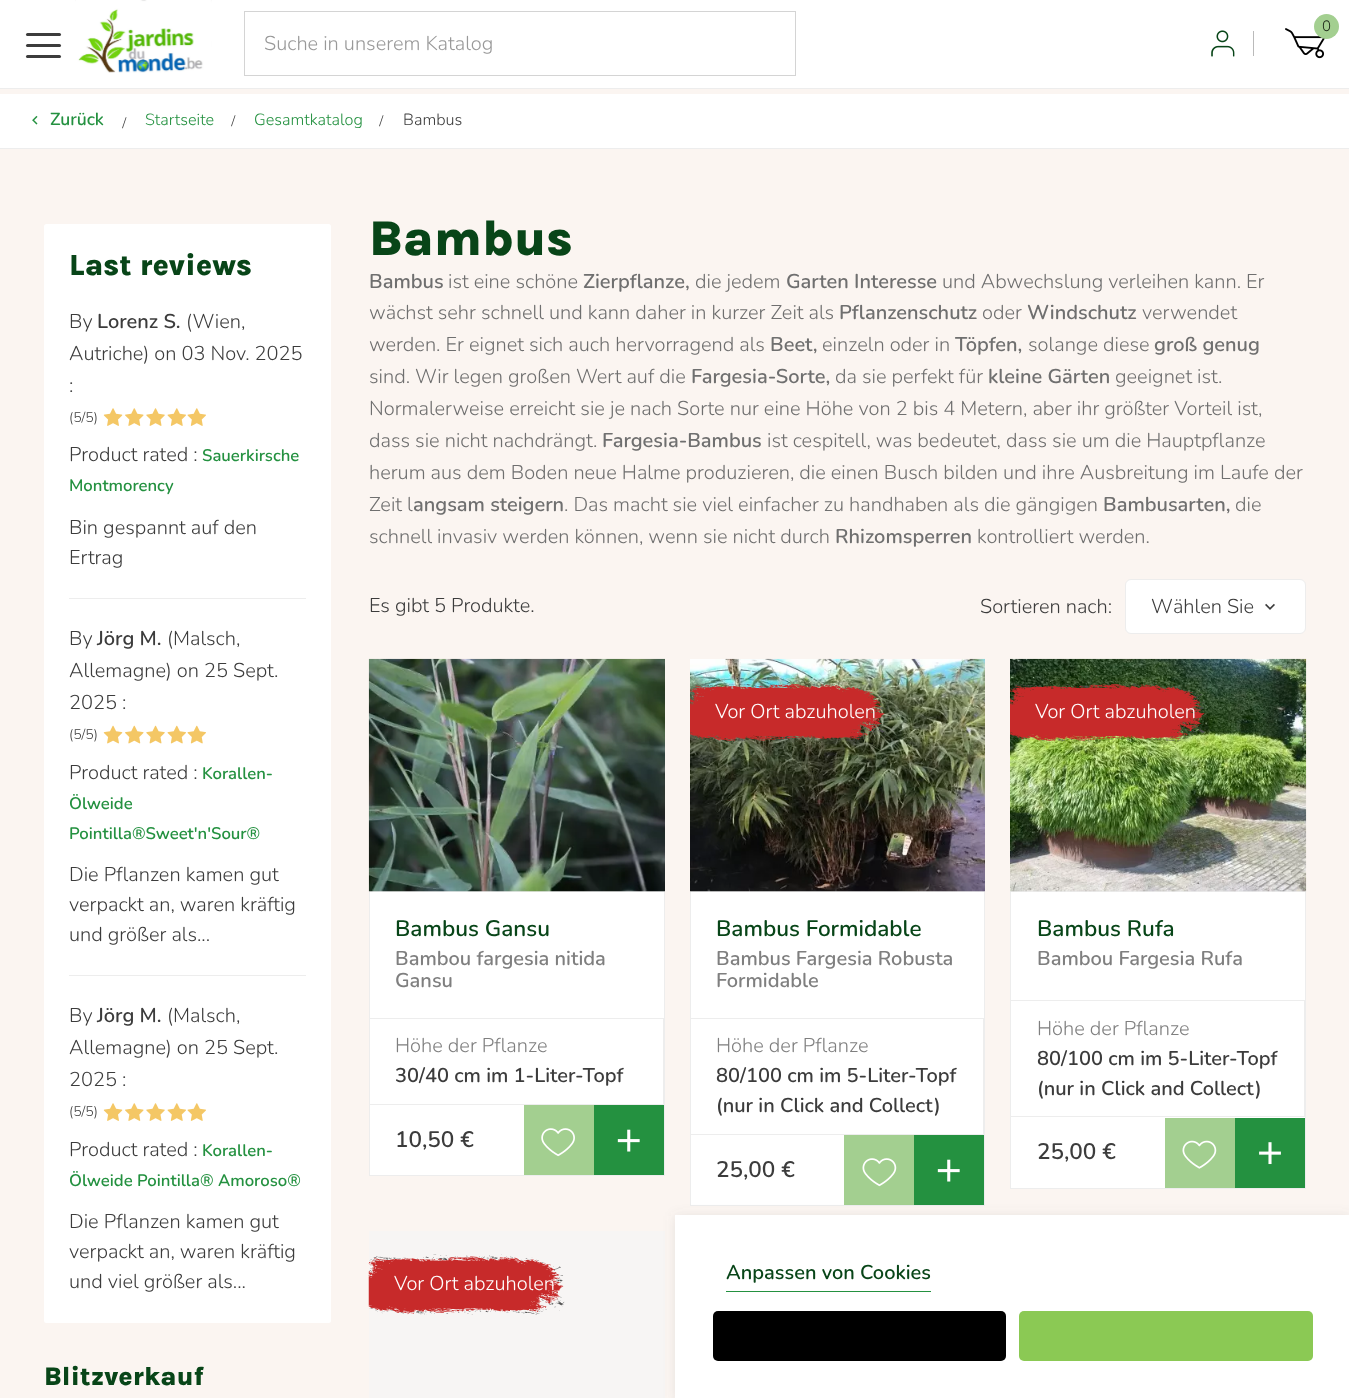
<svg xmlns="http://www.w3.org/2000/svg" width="1349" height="1398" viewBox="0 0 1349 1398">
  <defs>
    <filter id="blur1" x="-50%" y="-200%" width="200%" height="500%"><feGaussianBlur stdDeviation="6"/></filter>
  </defs>
  <rect width="100%" height="100%" fill="#fbf5f1"/>
  <rect x="0" y="88" width="1349" height="1" fill="#ededed"/>
  <rect x="0" y="0" width="1349" height="88" fill="#ffffff"/>
  <image x="75" y="0" width="137" height="73" href="img1.png"/>
  <image x="1285" y="28" width="40" height="31" href="img2.png"/>
  <circle cx="1326.5" cy="26.5" r="12.5" fill="#a3cf90"/>
  <text x="1322" y="31" font-family="Nunito" font-size="15" font-weight="300" fill="#1b2616">0</text>
  <image x="1211" y="30" width="24" height="27" href="img3.png"/>
  <rect x="1253" y="31" width="1" height="25" fill="#bababa"/>
  <rect x="26" y="33" width="35" height="3" rx="1.5" fill="#3c3c3c"/>
  <rect x="26" y="44" width="35" height="3" rx="1.5" fill="#3c3c3c"/>
  <rect x="26" y="55" width="35" height="3" rx="1.5" fill="#3c3c3c"/>
  <rect x="244.5" y="11.5" width="551" height="64" fill="none" stroke="#d4d4d4"/>
  <text x="264" y="50" font-family="Nunito" font-size="20" font-weight="300" fill="#999999">Suche in unserem Katalog</text>
  <rect x="0" y="94" width="1349" height="54" fill="#ffffff"/>
  <rect x="0" y="148" width="1349" height="1" fill="#ededed"/>
  <image x="32" y="115" width="6" height="10" href="img4.png"/>
  <text x="50" y="125" font-family="Nunito" font-size="17.5" font-weight="600" fill="#249140">Zurück</text>
  <text x="122" y="128" font-family="Liberation Serif" font-size="16.25" fill="#3c3c3c">/</text>
  <text x="145" y="125" font-family="Nunito" font-size="16.25" font-weight="300" fill="#249140">Startseite</text>
  <text x="231" y="126" font-family="Liberation Serif" font-size="16.25" fill="#3c3c3c">/</text>
  <text x="254" y="125" font-family="Nunito" font-size="16.25" font-weight="300" fill="#249140">Gesamtkatalog</text>
  <text x="379" y="126" font-family="Liberation Serif" font-size="16.25" fill="#3c3c3c">/</text>
  <text x="403" y="125" font-family="Nunito" font-size="16.25" font-weight="300" fill="#3c3c3c">Bambus</text>
  <rect x="44" y="224" width="287" height="1099" rx="2.5" fill="#ffffff"/>
  <text x="69" y="275" font-family="Karla" font-size="30" font-weight="800" fill="#084518">Last reviews</text>
  <rect x="69" y="598" width="237" height="1" fill="#ededed"/>
  <text x="69" y="328" font-family="Nunito" font-size="20" font-weight="300" fill="#3c3c3c">By</text>
  <text x="97" y="328" font-family="Nunito" font-size="20" font-weight="600" fill="#3c3c3c">Lorenz S.</text>
  <text x="186" y="328" font-family="Nunito" font-size="20" font-weight="300" fill="#3c3c3c">(Wien,</text>
  <text x="69" y="360" font-family="Nunito" font-size="20" font-weight="300" fill="#3c3c3c">Autriche) on 03 Nov. 2025</text>
  <text x="69" y="392" font-family="Nunito" font-size="20" font-weight="300" fill="#3c3c3c">:</text>
  <text x="69" y="422" font-family="Nunito" font-size="14" font-weight="300" fill="#3c3c3c">(5/5)</text>
  <image x="103" y="408" width="20" height="18" href="img5.png"/>
  <image x="125" y="408" width="19" height="18" href="img6.png"/>
  <image x="146" y="408" width="19" height="18" href="img7.png"/>
  <image x="167" y="408" width="19" height="18" href="img8.png"/>
  <image x="187" y="408" width="19" height="18" href="img8.png"/>
  <text x="69" y="461" font-family="Nunito" font-size="20" font-weight="300" fill="#3c3c3c">Product rated :</text>
  <text x="202" y="461" font-family="Nunito" font-size="16.7" font-weight="600" fill="#249140">Sauerkirsche</text>
  <text x="69" y="491" font-family="Nunito" font-size="16.7" font-weight="600" fill="#249140">Montmorency</text>
  <text x="69" y="534" font-family="Nunito" font-size="20" font-weight="300" fill="#3c3c3c">Bin gespannt auf den</text>
  <text x="69" y="564" font-family="Nunito" font-size="20" font-weight="300" fill="#3c3c3c">Ertrag</text>
  <rect x="69" y="975" width="237" height="1" fill="#ededed"/>
  <text x="69" y="645" font-family="Nunito" font-size="20" font-weight="300" fill="#3c3c3c">By</text>
  <text x="97" y="645" font-family="Nunito" font-size="20" font-weight="600" fill="#3c3c3c">Jörg M.</text>
  <text x="167" y="645" font-family="Nunito" font-size="20" font-weight="300" fill="#3c3c3c">(Malsch,</text>
  <text x="69" y="677" font-family="Nunito" font-size="20" font-weight="300" fill="#3c3c3c">Allemagne) on 25 Sept.</text>
  <text x="69" y="709" font-family="Nunito" font-size="20" font-weight="300" fill="#3c3c3c">2025 :</text>
  <text x="69" y="739" font-family="Nunito" font-size="14" font-weight="300" fill="#3c3c3c">(5/5)</text>
  <image x="103" y="725" width="20" height="19" href="img9.png"/>
  <image x="125" y="725" width="19" height="19" href="img10.png"/>
  <image x="146" y="725" width="19" height="19" href="img11.png"/>
  <image x="167" y="725" width="19" height="19" href="img12.png"/>
  <image x="187" y="725" width="19" height="19" href="img12.png"/>
  <text x="69" y="779" font-family="Nunito" font-size="20" font-weight="300" fill="#3c3c3c">Product rated :</text>
  <text x="202" y="779" font-family="Nunito" font-size="16.7" font-weight="600" fill="#249140">Korallen-</text>
  <text x="69" y="809" font-family="Nunito" font-size="16.7" font-weight="600" fill="#249140">Ölweide</text>
  <text x="69" y="839" font-family="Nunito" font-size="16.7" font-weight="600" fill="#249140">Pointilla®Sweet'n'Sour®</text>
  <text x="69" y="881" font-family="Nunito" font-size="20" font-weight="300" fill="#3c3c3c">Die Pflanzen kamen gut</text>
  <text x="69" y="911" font-family="Nunito" font-size="20" font-weight="300" fill="#3c3c3c">verpackt an, waren kräftig</text>
  <text x="69" y="941" font-family="Nunito" font-size="20" font-weight="300" fill="#3c3c3c">und größer als...</text>
  <text x="69" y="1022" font-family="Nunito" font-size="20" font-weight="300" fill="#3c3c3c">By</text>
  <text x="97" y="1022" font-family="Nunito" font-size="20" font-weight="600" fill="#3c3c3c">Jörg M.</text>
  <text x="167" y="1022" font-family="Nunito" font-size="20" font-weight="300" fill="#3c3c3c">(Malsch,</text>
  <text x="69" y="1054" font-family="Nunito" font-size="20" font-weight="300" fill="#3c3c3c">Allemagne) on 25 Sept.</text>
  <text x="69" y="1086" font-family="Nunito" font-size="20" font-weight="300" fill="#3c3c3c">2025 :</text>
  <text x="69" y="1116" font-family="Nunito" font-size="14" font-weight="300" fill="#3c3c3c">(5/5)</text>
  <image x="103" y="1103" width="20" height="18" href="img5.png"/>
  <image x="125" y="1103" width="19" height="18" href="img6.png"/>
  <image x="146" y="1103" width="19" height="18" href="img7.png"/>
  <image x="167" y="1103" width="19" height="18" href="img8.png"/>
  <image x="187" y="1103" width="19" height="18" href="img8.png"/>
  <text x="69" y="1156" font-family="Nunito" font-size="20" font-weight="300" fill="#3c3c3c">Product rated :</text>
  <text x="202" y="1156" font-family="Nunito" font-size="16.7" font-weight="600" fill="#249140">Korallen-</text>
  <text x="69" y="1186" font-family="Nunito" font-size="16.7" font-weight="600" fill="#249140">Ölweide Pointilla® Amoroso®</text>
  <text x="69" y="1228" font-family="Nunito" font-size="20" font-weight="300" fill="#3c3c3c">Die Pflanzen kamen gut</text>
  <text x="69" y="1258" font-family="Nunito" font-size="20" font-weight="300" fill="#3c3c3c">verpackt an, waren kräftig</text>
  <text x="69" y="1288" font-family="Nunito" font-size="20" font-weight="300" fill="#3c3c3c">und viel größer als...</text>
  <text x="44" y="1385" font-family="Karla" font-size="26.25" font-weight="800" fill="#084518">Blitzverkauf</text>
  <text x="369" y="255" font-family="Karla" font-size="50" font-weight="800" fill="#084518">Bambus</text>
  <text x="369" y="288" font-family="Nunito" font-size="20" font-weight="600" fill="#6f6f6f">Bambus</text>
  <text x="448" y="288" font-family="Nunito" font-size="20" font-weight="300" fill="#6f6f6f">ist eine schöne</text>
  <text x="583" y="288" font-family="Nunito" font-size="20" font-weight="600" fill="#6f6f6f">Zierpflanze,</text>
  <text x="695" y="288" font-family="Nunito" font-size="20" font-weight="300" fill="#6f6f6f">die jedem</text>
  <text x="786" y="288" font-family="Nunito" font-size="20" font-weight="600" fill="#6f6f6f">Garten Interesse</text>
  <text x="942" y="288" font-family="Nunito" font-size="20" font-weight="300" fill="#6f6f6f">und Abwechslung verleihen kann. Er</text>
  <text x="369" y="319" font-family="Nunito" font-size="20" font-weight="300" fill="#6f6f6f">wächst sehr schnell und kann daher in kurzer Zeit als</text>
  <text x="839" y="319" font-family="Nunito" font-size="20" font-weight="600" fill="#6f6f6f">Pflanzenschutz</text>
  <text x="982" y="319" font-family="Nunito" font-size="20" font-weight="300" fill="#6f6f6f">oder</text>
  <text x="1027" y="319" font-family="Nunito" font-size="20" font-weight="600" fill="#6f6f6f">Windschutz</text>
  <text x="1142" y="319" font-family="Nunito" font-size="20" font-weight="300" fill="#6f6f6f">verwendet</text>
  <text x="369" y="351" font-family="Nunito" font-size="20" font-weight="300" fill="#6f6f6f">werden. Er eignet sich auch hervorragend als</text>
  <text x="770" y="351" font-family="Nunito" font-size="20" font-weight="600" fill="#6f6f6f">Beet,</text>
  <text x="822" y="351" font-family="Nunito" font-size="20" font-weight="300" fill="#6f6f6f">einzeln oder in</text>
  <text x="955" y="351" font-family="Nunito" font-size="20" font-weight="600" fill="#6f6f6f">Töpfen,</text>
  <text x="1028" y="351" font-family="Nunito" font-size="20" font-weight="300" fill="#6f6f6f">solange diese</text>
  <text x="1154" y="351" font-family="Nunito" font-size="20" font-weight="600" fill="#6f6f6f">groß genug</text>
  <text x="369" y="383" font-family="Nunito" font-size="20" font-weight="300" fill="#6f6f6f">sind. Wir legen großen Wert auf die</text>
  <text x="691" y="383" font-family="Nunito" font-size="20" font-weight="600" fill="#6f6f6f">Fargesia-Sorte,</text>
  <text x="835" y="383" font-family="Nunito" font-size="20" font-weight="300" fill="#6f6f6f">da sie perfekt für</text>
  <text x="988" y="383" font-family="Nunito" font-size="20" font-weight="600" fill="#6f6f6f">kleine Gärten</text>
  <text x="1115" y="383" font-family="Nunito" font-size="20" font-weight="300" fill="#6f6f6f">geeignet ist.</text>
  <text x="369" y="415" font-family="Nunito" font-size="20" font-weight="300" fill="#6f6f6f">Normalerweise erreicht sie je nach Sorte nur eine Höhe von 2 bis 4 Metern, aber ihr größter Vorteil ist,</text>
  <text x="369" y="447" font-family="Nunito" font-size="20" font-weight="300" fill="#6f6f6f">dass sie nicht nachdrängt.</text>
  <text x="602" y="447" font-family="Nunito" font-size="20" font-weight="600" fill="#6f6f6f">Fargesia-Bambus</text>
  <text x="767" y="447" font-family="Nunito" font-size="20" font-weight="300" fill="#6f6f6f">ist cespitell, was bedeutet, dass sie um die Hauptpflanze</text>
  <text x="369" y="479" font-family="Nunito" font-size="20" font-weight="300" fill="#6f6f6f">herum aus dem Boden neue Halme produzieren, die einen Busch bilden und ihre Ausbreitung im Laufe der</text>
  <text x="369" y="511" font-family="Nunito" font-size="20" font-weight="300" fill="#6f6f6f">Zeit l</text>
  <text x="413" y="511" font-family="Nunito" font-size="20" font-weight="600" fill="#6f6f6f">angsam steigern</text>
  <text x="564" y="511" font-family="Nunito" font-size="20" font-weight="300" fill="#6f6f6f">. Das macht sie viel einfacher zu handhaben als die gängigen</text>
  <text x="1103" y="511" font-family="Nunito" font-size="20" font-weight="600" fill="#6f6f6f">Bambusarten,</text>
  <text x="1235" y="511" font-family="Nunito" font-size="20" font-weight="300" fill="#6f6f6f">die</text>
  <text x="369" y="543" font-family="Nunito" font-size="20" font-weight="300" fill="#6f6f6f">schnell invasiv werden können, wenn sie nicht durch</text>
  <text x="835" y="543" font-family="Nunito" font-size="20" font-weight="600" fill="#6f6f6f">Rhizomsperren</text>
  <text x="977" y="543" font-family="Nunito" font-size="20" font-weight="300" fill="#6f6f6f">kontrolliert werden.</text>
  <text x="369" y="612" font-family="Nunito" font-size="20" font-weight="300" fill="#3c3c3c">Es gibt 5 Produkte.</text>
  <text x="980" y="613" font-family="Nunito" font-size="20" font-weight="300" fill="#3c3c3c">Sortieren nach:</text>
  <rect x="1125.5" y="579.5" width="180" height="54" rx="5.5" fill="#ffffff" stroke="#ededed"/>
  <text x="1151" y="613" font-family="Nunito" font-size="20" font-weight="300" fill="#3c3c3c">Wählen Sie</text>
  <image x="1265" y="603" width="10" height="7" href="img13.png"/>
  <rect x="369.5" y="891.5" width="295" height="284" fill="#ffffff" stroke="#ededed"/>
  <image x="368" y="658" width="297" height="234" href="img14.png"/>
  <rect x="370" y="1018" width="294" height="1" fill="#ededed"/>
  <text x="395" y="936" font-family="Nunito" font-size="22.5" font-weight="600" fill="#084518">Bambus Gansu</text>
  <text x="395" y="965" font-family="Nunito" font-size="20" font-weight="600" fill="#7f7f7f">Bambou fargesia nitida</text>
  <text x="395" y="987" font-family="Nunito" font-size="20" font-weight="600" fill="#7f7f7f">Gansu</text>
  <rect x="370" y="1104" width="294" height="1" fill="#ededed"/>
  <rect x="663" y="1019" width="1" height="85" fill="#ededed"/>
  <text x="395" y="1052" font-family="Nunito" font-size="20" font-weight="300" fill="#7f7f7f">Höhe der Pflanze</text>
  <text x="395" y="1082" font-family="Nunito" font-size="20" font-weight="600" fill="#3c3c3c">30/40 cm im 1-Liter-Topf</text>
  <text x="395" y="1147" font-family="Nunito" font-size="22.5" font-weight="600" fill="#3c3c3c">10,50 €</text>
  <rect x="524" y="1105" width="70" height="70" fill="#a3cf90"/>
  <image x="541" y="1128" width="34" height="29" href="img15.png"/>
  <rect x="594" y="1105" width="70" height="70" fill="#249140"/>
  <image x="617" y="1129" width="23" height="23" href="img16.png"/>
  <rect x="690.5" y="891.5" width="294" height="314" fill="#ffffff" stroke="#ededed"/>
  <image x="690" y="658" width="295" height="234" href="img17.png"/>
  <image x="690" y="681" width="196" height="61" href="img18.png"/>
  <text x="715" y="718" font-family="Nunito" font-size="20" font-weight="300" fill="#ffffff">Vor Ort abzuholen</text>
  <rect x="691" y="1018" width="293" height="1" fill="#ededed"/>
  <text x="716" y="936" font-family="Nunito" font-size="22.5" font-weight="600" fill="#084518">Bambus Formidable</text>
  <text x="716" y="965" font-family="Nunito" font-size="20" font-weight="600" fill="#7f7f7f">Bambus Fargesia Robusta</text>
  <text x="716" y="987" font-family="Nunito" font-size="20" font-weight="600" fill="#7f7f7f">Formidable</text>
  <rect x="691" y="1134" width="293" height="1" fill="#ededed"/>
  <rect x="983" y="1019" width="1" height="115" fill="#ededed"/>
  <text x="716" y="1052" font-family="Nunito" font-size="20" font-weight="300" fill="#7f7f7f">Höhe der Pflanze</text>
  <text x="716" y="1082" font-family="Nunito" font-size="20" font-weight="600" fill="#3c3c3c">80/100 cm im 5-Liter-Topf</text>
  <text x="716" y="1112" font-family="Nunito" font-size="20" font-weight="600" fill="#3c3c3c">(nur in Click and Collect)</text>
  <text x="716" y="1177" font-family="Nunito" font-size="22.5" font-weight="600" fill="#3c3c3c">25,00 €</text>
  <rect x="844" y="1135" width="70" height="70" fill="#a3cf90"/>
  <image x="862" y="1158" width="35" height="29" href="img19.png"/>
  <rect x="914" y="1135" width="70" height="70" fill="#249140"/>
  <image x="937" y="1159" width="23" height="23" href="img16.png"/>
  <rect x="1010.5" y="891.5" width="295" height="297" fill="#ffffff" stroke="#ededed"/>
  <image x="1010" y="658" width="297" height="234" href="img20.png"/>
  <image x="1010" y="681" width="196" height="62" href="img21.png"/>
  <text x="1035" y="718" font-family="Nunito" font-size="20" font-weight="300" fill="#ffffff">Vor Ort abzuholen</text>
  <rect x="1011" y="1000" width="294" height="1" fill="#ededed"/>
  <text x="1037" y="936" font-family="Nunito" font-size="22.5" font-weight="600" fill="#084518">Bambus Rufa</text>
  <text x="1037" y="965" font-family="Nunito" font-size="20" font-weight="600" fill="#7f7f7f">Bambou Fargesia Rufa</text>
  <rect x="1011" y="1116" width="294" height="1" fill="#ededed"/>
  <rect x="1304" y="1001" width="1" height="115" fill="#ededed"/>
  <text x="1037" y="1035" font-family="Nunito" font-size="20" font-weight="300" fill="#7f7f7f">Höhe der Pflanze</text>
  <text x="1037" y="1065" font-family="Nunito" font-size="20" font-weight="600" fill="#3c3c3c">80/100 cm im 5-Liter-Topf</text>
  <text x="1037" y="1095" font-family="Nunito" font-size="20" font-weight="600" fill="#3c3c3c">(nur in Click and Collect)</text>
  <text x="1037" y="1159" font-family="Nunito" font-size="22.5" font-weight="600" fill="#3c3c3c">25,00 €</text>
  <rect x="1165" y="1118" width="70" height="70" fill="#a3cf90"/>
  <image x="1182" y="1140" width="35" height="29" href="img22.png"/>
  <rect x="1235" y="1118" width="70" height="70" fill="#249140"/>
  <image x="1259" y="1142" width="22" height="23" href="img23.png"/>
  <rect x="369" y="1231" width="296" height="167" fill="#f7f5f4"/>
  <image x="368" y="1254" width="197" height="61" href="img24.png"/>
  <text x="394" y="1290" font-family="Nunito" font-size="20" font-weight="300" fill="#ffffff">Vor Ort abzuholen</text>
  <rect x="675" y="1216" width="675" height="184" fill="#707070" fill-opacity="0.15" filter="url(#blur1)"/>
  <rect x="675" y="1215" width="674" height="183" fill="#ffffff"/>
  <text x="726" y="1279" font-family="Nunito" font-size="20" font-weight="600" fill="#084518">Anpassen von Cookies</text>
  <rect x="726" y="1291" width="205" height="1" fill="#249140"/>
  <rect x="713" y="1311" width="293" height="50" rx="5" fill="#000000"/>
  <rect x="1019" y="1311" width="294" height="50" rx="5" fill="#8bc954"/>
</svg>
